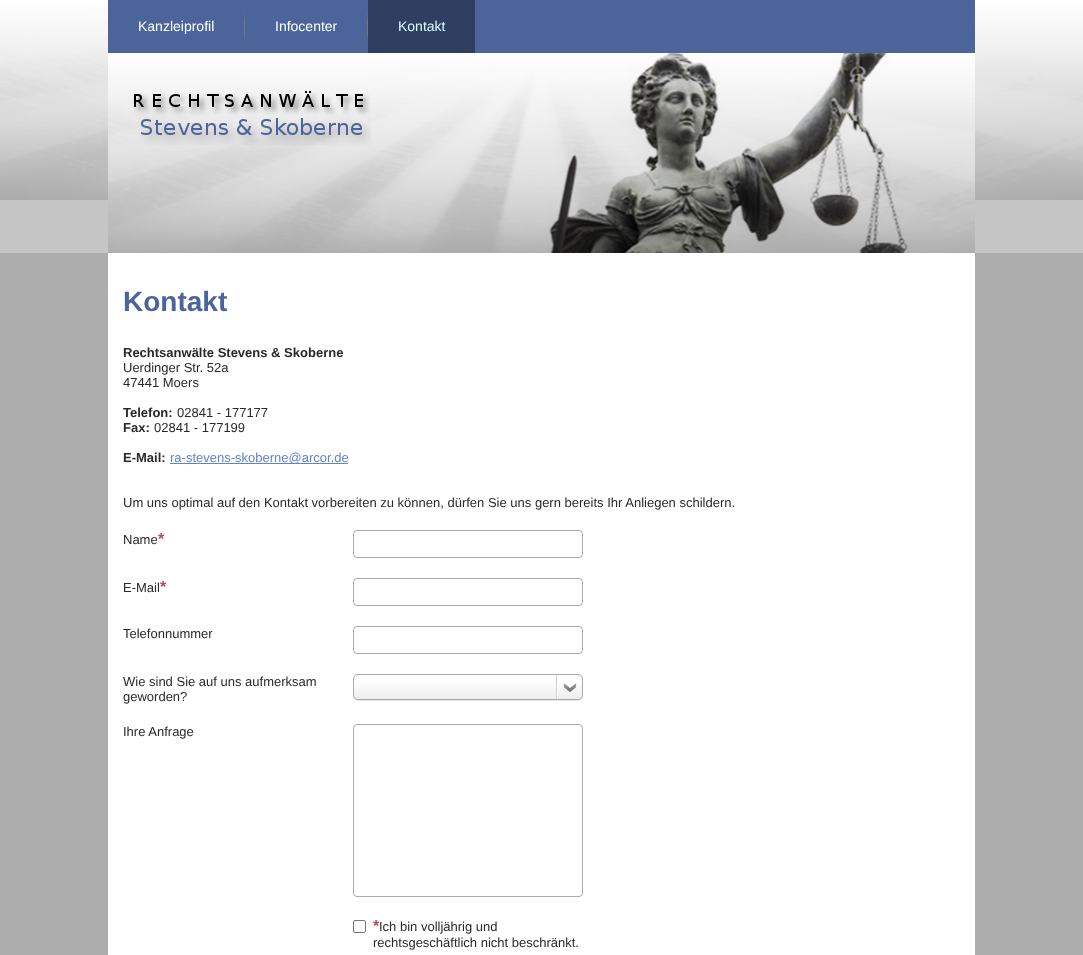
<svg xmlns="http://www.w3.org/2000/svg" width="1083" height="955" viewBox="0 0 1083 955">
  <defs>
    <filter id="blur1" x="-50%" y="-200%" width="200%" height="500%"><feGaussianBlur stdDeviation="0.5"/></filter>
    <linearGradient id="g1" gradientUnits="userSpaceOnUse" x1="468" y1="675" x2="468" y2="699"><stop offset="0.2" stop-color="#ffffff"/><stop offset="1" stop-color="#eeeeee"/></linearGradient>
  </defs>
  <rect width="100%" height="100%" fill="#adadad"/>
  <rect x="0" y="200" width="1083" height="53" fill="#c5c5c5"/>
  <image x="0" y="0" width="1083" height="200" href="img1.png"/>
  <rect x="108" y="253" width="867" height="702" fill="#ffffff"/>
  <rect x="108" y="0" width="867" height="53" fill="#4b659b"/>
  <text x="138" y="31" font-family="Liberation Sans" font-size="14" fill="#ffffff">Kanzleiprofil</text>
  <image x="244" y="13" width="1" height="28" href="img2.png"/>
  <text x="275" y="31" font-family="Liberation Sans" font-size="14" fill="#ffffff">Infocenter</text>
  <image x="367" y="13" width="1" height="28" href="img2.png"/>
  <rect x="368" y="0" width="107" height="53" fill="#2f3f61"/>
  <text x="398" y="31" font-family="Liberation Sans" font-size="14" fill="#dbfaff">Kontakt</text>
  <image x="108" y="53" width="867" height="200" href="img3.png"/>
  <image x="133" y="91" width="238" height="54" href="img4.png"/>
  <text x="123" y="311" font-family="Liberation Sans" font-size="28" font-weight="bold" fill="#4b659b">Kontakt</text>
  <text x="123" y="357" font-family="Liberation Sans" font-size="13" font-weight="bold" fill="#292929">Rechtsanwälte Stevens &amp; Skoberne</text>
  <text x="123" y="372" font-family="Liberation Sans" font-size="13" fill="#292929">Uerdinger Str. 52a</text>
  <text x="123" y="387" font-family="Liberation Sans" font-size="13" fill="#292929">47441 Moers</text>
  <text x="123" y="417" font-family="Liberation Sans" font-size="13" font-weight="bold" fill="#292929">Telefon:</text>
  <text x="177" y="417" font-family="Liberation Sans" font-size="13" fill="#292929">02841 - 177177</text>
  <text x="123" y="432" font-family="Liberation Sans" font-size="13" font-weight="bold" fill="#292929">Fax:</text>
  <text x="154" y="432" font-family="Liberation Sans" font-size="13" fill="#292929">02841 - 177199</text>
  <text x="123" y="462" font-family="Liberation Sans" font-size="13" font-weight="bold" fill="#292929">E-Mail:</text>
  <rect x="170" y="463" width="178" height="1" fill="#6082c7"/>
  <text x="170" y="462" font-family="Liberation Sans" font-size="13" fill="#6082c7">ra-stevens-skoberne@arcor.de</text>
  <text x="123" y="507" font-family="Liberation Sans" font-size="13" fill="#292929">Um uns optimal auf den Kontakt vorbereiten zu können, dürfen Sie uns gern bereits Ihr Anliegen schildern.</text>
  <text x="123" y="544" font-family="Liberation Sans" font-size="13" fill="#292929">Name</text>
  <text x="158" y="544" font-family="Liberation Sans" font-size="16" font-weight="bold" fill="#b94a48">*</text>
  <rect x="353.5" y="530.5" width="229" height="27" rx="3.5" fill="none" stroke="#aaaaaa"/>
  <text x="123" y="592" font-family="Liberation Sans" font-size="13" fill="#292929">E-Mail</text>
  <text x="160" y="592" font-family="Liberation Sans" font-size="16" font-weight="bold" fill="#b94a48">*</text>
  <rect x="353.5" y="578.5" width="229" height="27" rx="3.5" fill="none" stroke="#aaaaaa"/>
  <text x="123" y="638" font-family="Liberation Sans" font-size="13" fill="#292929">Telefonnummer</text>
  <rect x="353.5" y="626.5" width="229" height="27" rx="3.5" fill="none" stroke="#aaaaaa"/>
  <text x="123" y="686" font-family="Liberation Sans" font-size="13" fill="#292929">Wie sind Sie auf uns aufmerksam</text>
  <text x="123" y="701" font-family="Liberation Sans" font-size="13" fill="#292929">geworden?</text>
  <rect x="353" y="675" width="230" height="26" rx="5" fill="#000000" fill-opacity="0.1" filter="url(#blur1)"/>
  <rect x="354" y="675" width="228" height="24" rx="4" fill="url(#g1)"/>
  <rect x="353.5" y="674.5" width="229" height="25" rx="4.5" fill="none" stroke="#aaaaaa"/>
  <image x="556" y="675" width="21" height="24" href="img5.png"/>
  <text x="123" y="736" font-family="Liberation Sans" font-size="13" fill="#292929">Ihre Anfrage</text>
  <rect x="353.5" y="724.5" width="229" height="172" rx="3.5" fill="none" stroke="#aaaaaa"/>
  <rect x="353.5" y="920.5" width="12" height="12" rx="1.5" fill="none" stroke="#767676"/>
  <text x="373" y="931" font-family="Liberation Sans" font-size="16" font-weight="bold" fill="#b94a48">*</text>
  <text x="379" y="931" font-family="Liberation Sans" font-size="13" fill="#292929">Ich bin volljährig und</text>
  <text x="373" y="947" font-family="Liberation Sans" font-size="13" fill="#292929">rechtsgeschäftlich nicht beschränkt.</text>
</svg>
